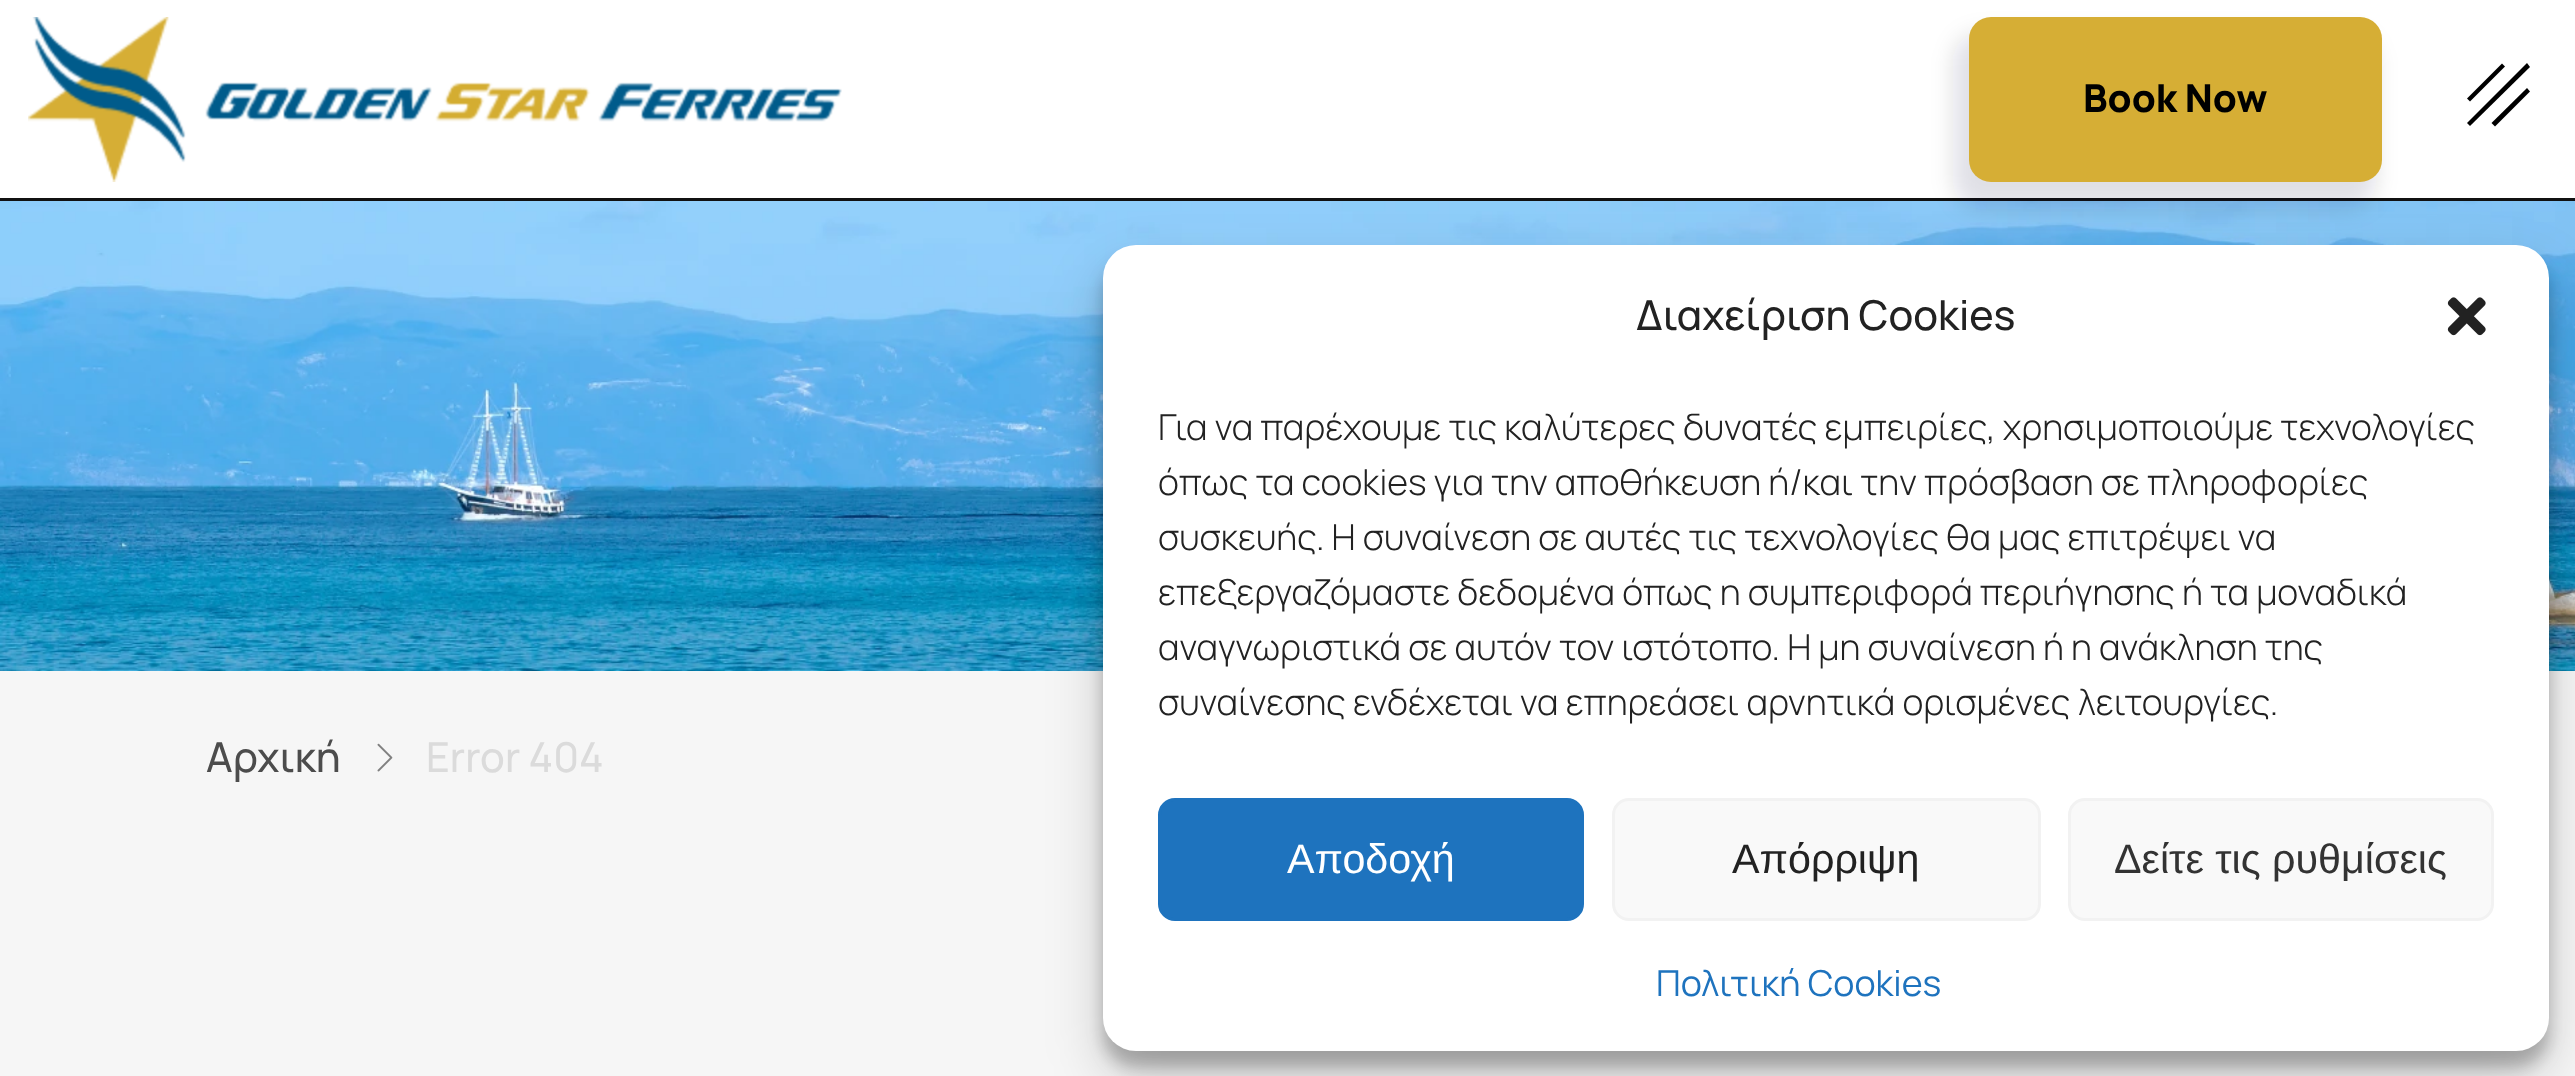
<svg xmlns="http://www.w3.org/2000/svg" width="2575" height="1076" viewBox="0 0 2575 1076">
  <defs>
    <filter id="blur1" x="-50%" y="-200%" width="200%" height="500%"><feGaussianBlur stdDeviation="11"/></filter>
    <filter id="blur2" x="-50%" y="-200%" width="200%" height="500%"><feGaussianBlur stdDeviation="8"/></filter>
    <filter id="blur3" x="-50%" y="-200%" width="200%" height="500%"><feGaussianBlur stdDeviation="27.5"/></filter>
  </defs>
  <rect width="100%" height="100%" fill="#f6f6f6"/>
  <rect x="0" y="0" width="2575" height="198" fill="#ffffff"/>
  <rect x="0" y="198" width="2575" height="3" fill="#111111"/>
  <image x="28" y="17" width="814" height="165" href="img1.png"/>
  <image x="0" y="201" width="2575" height="470" href="img2.png"/>
  <rect x="1953" y="33" width="423" height="176" rx="28" fill="#00153d" fill-opacity="0.12" filter="url(#blur1)"/>
  <rect x="1969" y="17" width="413" height="165" rx="22" fill="#d6ae35"/>
  <text x="2083" y="112" font-family="Manrope" font-size="38.5" font-weight="800" fill="#000000">Book Now</text>
  <path d="M2505 66.5L2470 101.5L2467 98.5L2502 63.5Z" fill="#000000"/>
  <path d="M2530 67L2470 126L2467 123L2527 63Z" fill="#000000"/>
  <path d="M2495 126.5L2530 91.5L2527 88L2491.5 123Z" fill="#000000"/>
  <text x="206" y="772" font-family="Manrope" font-size="41.25" font-weight="500" fill="#4c4c4c">Αρχική</text>
  <image x="377" y="743" width="16" height="29" href="img3.png"/>
  <text x="426" y="772" font-family="Manrope" font-size="41.25" font-weight="500" fill="#dbdbdb">Error 404</text>
  <rect x="1103" y="261" width="1446" height="806" rx="33" fill="#000000" fill-opacity="0.23" filter="url(#blur2)"/>
  <rect x="1103" y="272" width="1446" height="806" rx="33" fill="#000000" fill-opacity="0.19" filter="url(#blur3)"/>
  <rect x="1103" y="245" width="1446" height="806" rx="33" fill="#ffffff"/>
  <text x="1636" y="330" font-family="Manrope" font-size="41.25" font-weight="500" fill="#222222">Διαχείριση Cookies</text>
  <image x="2447" y="297" width="39" height="39" href="img4.png"/>
  <text x="1158" y="440" font-family="Manrope" font-size="35.75" font-weight="300" fill="#222222">Για να παρέχουμε τις καλύτερες δυνατές εμπειρίες, χρησιμοποιούμε τεχνολογίες</text>
  <text x="1158" y="495" font-family="Manrope" font-size="35.75" font-weight="300" fill="#222222">όπως τα cookies για την αποθήκευση ή/και την πρόσβαση σε πληροφορίες</text>
  <text x="1158" y="550" font-family="Manrope" font-size="35.75" font-weight="300" fill="#222222">συσκευής. Η συναίνεση σε αυτές τις τεχνολογίες θα μας επιτρέψει να</text>
  <text x="1158" y="605" font-family="Manrope" font-size="35.75" font-weight="300" fill="#222222">επεξεργαζόμαστε δεδομένα όπως η συμπεριφορά περιήγησης ή τα μοναδικά</text>
  <text x="1158" y="660" font-family="Manrope" font-size="35.75" font-weight="300" fill="#222222">αναγνωριστικά σε αυτόν τον ιστότοπο. Η μη συναίνεση ή η ανάκληση της</text>
  <text x="1158" y="715" font-family="Manrope" font-size="35.75" font-weight="300" fill="#222222">συναίνεσης ενδέχεται να επηρεάσει αρνητικά ορισμένες λειτουργίες.</text>
  <rect x="1159.5" y="799.5" width="423" height="120" rx="15.5" fill="#1e73be" stroke="#1e73be" stroke-width="3"/>
  <text x="1287" y="873" font-family="Liberation Sans" font-size="41.25" fill="#ffffff">Αποδοχή</text>
  <rect x="1613.5" y="799.5" width="426" height="120" rx="15.5" fill="#f9f9f9" stroke="#f2f2f2" stroke-width="3"/>
  <text x="1732" y="873" font-family="Liberation Sans" font-size="41.25" fill="#222222">Απόρριψη</text>
  <rect x="2069.5" y="799.5" width="423" height="120" rx="15.5" fill="#f9f9f9" stroke="#f2f2f2" stroke-width="3"/>
  <text x="2114" y="873" font-family="Liberation Sans" font-size="41.25" fill="#333333">Δείτε τις ρυθμίσεις</text>
  <text x="1656" y="996" font-family="Manrope" font-size="35.75" fill="#1e73be">Πολιτική Cookies</text>
</svg>
